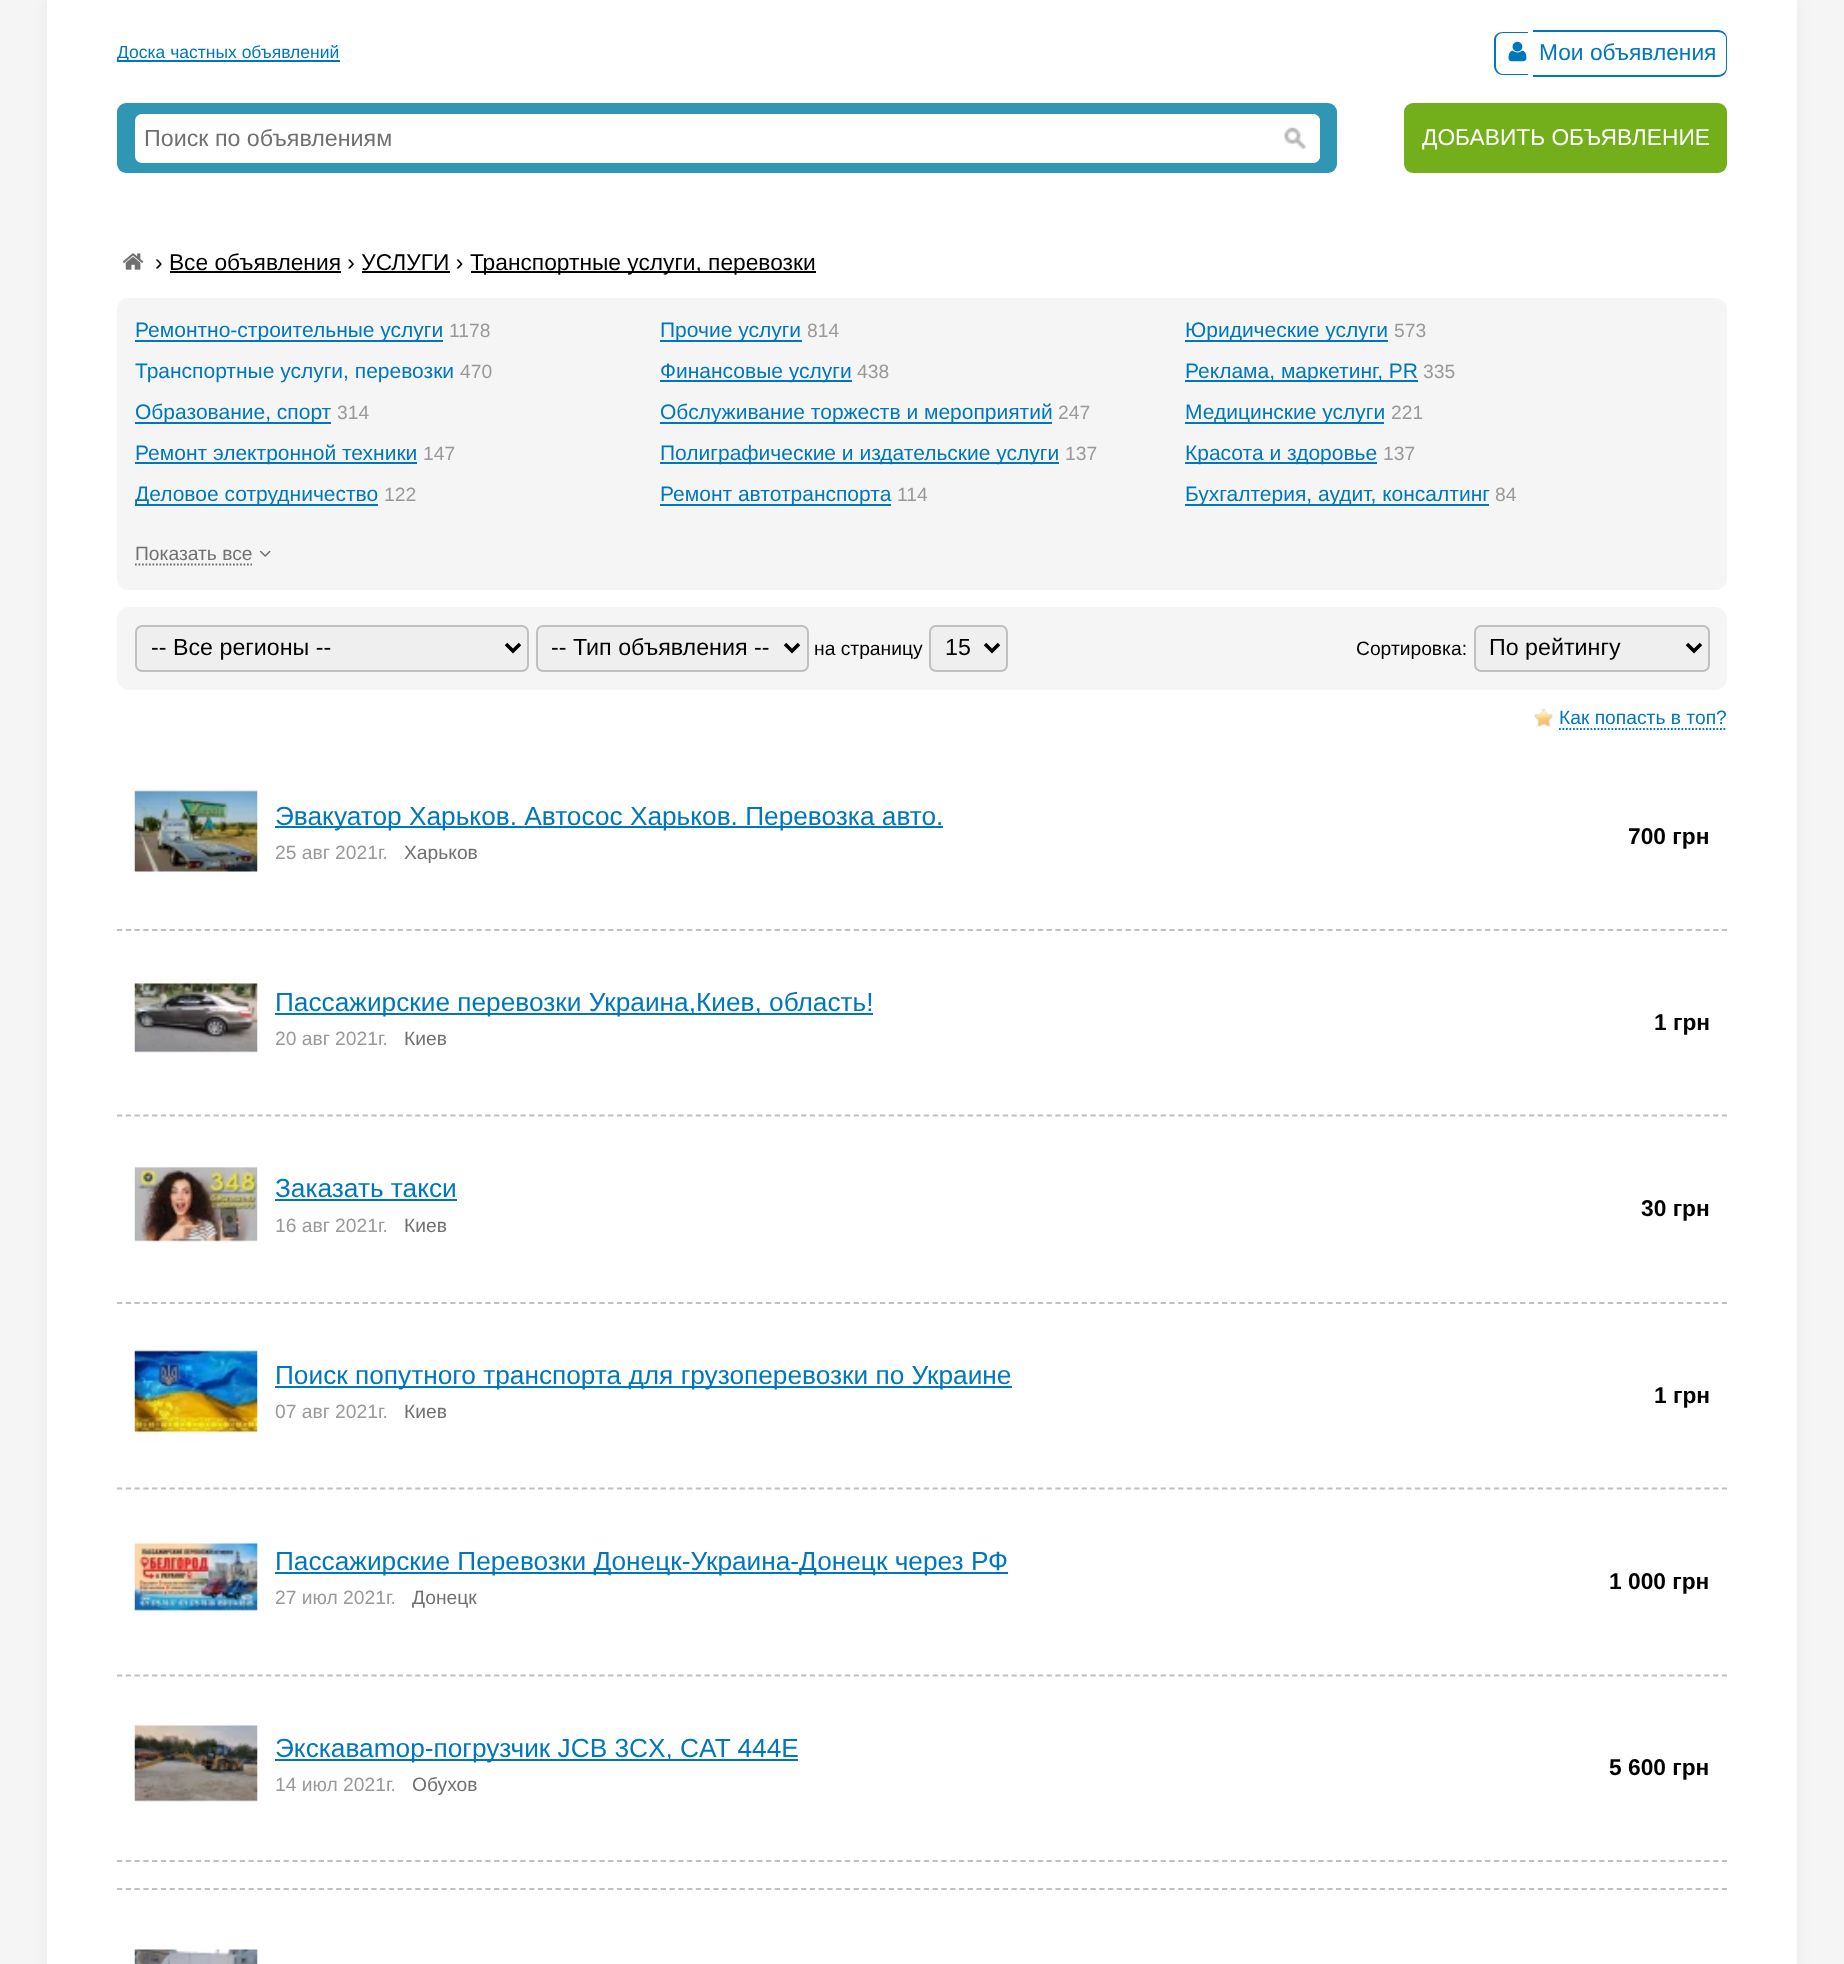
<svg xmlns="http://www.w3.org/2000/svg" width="1844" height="1964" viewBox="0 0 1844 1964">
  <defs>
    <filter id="blur1" x="-50%" y="-200%" width="200%" height="500%"><feGaussianBlur stdDeviation="9"/></filter>
    <clipPath id="clip1"><rect x="135" y="480" width="525" height="31"/></clipPath>
  </defs>
  <rect width="100%" height="100%" fill="#f5f5f5"/>
  <rect x="47" y="0" width="1750" height="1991" fill="#e8e8e8" filter="url(#blur1)"/>
  <rect x="47" y="0" width="1750" height="1964" fill="#ffffff"/>
  <rect x="117" y="60" width="223" height="2" fill="#0077bb"/>
  <text x="117" y="58" font-family="Liberation Sans" font-size="17.5" fill="#0077bb">Доска частных объявлений</text>
  <path d="M1503 32H1528V75H1503C1498 75 1494 71 1494 66V40C1494 35 1498 32 1503 32ZM1503 33H1528V74H1503C1499 74 1496 70 1496 66V40C1496 36 1499 33 1503 33Z" fill="#0077bb" fill-rule="evenodd"/>
  <path d="M1533 30H1718C1723 30 1727 34 1727 38V68C1727 73 1723 77 1718 77H1533ZM1533 32H1718C1722 32 1726 35 1726 38V68C1726 72 1722 75 1718 75H1533Z" fill="#0077bb" fill-rule="evenodd"/>
  <image x="1508" y="41" width="19" height="21" href="img1.png"/>
  <text x="1539" y="60" font-family="Liberation Sans" font-size="22.75" fill="#0077bb">Мои объявления</text>
  <rect x="117" y="103" width="1220" height="70" rx="9" fill="#2f96b4"/>
  <path d="M142 115H1271V162H142C138.5 162 136 159.5 136 156V121C136 117.5 138.5 115 142 115Z" fill="#ffffff" stroke="#ffffff" stroke-width="2"/>
  <text x="144" y="146" font-family="Liberation Sans" font-size="23.25" fill="#707070">Поиск по объявлениям</text>
  <path d="M1272 114H1313C1317 114 1320 117 1320 121V156C1320 160 1317 163 1313 163H1272Z" fill="#ffffff"/>
  <image x="1284" y="127" width="22" height="22" href="img2.png"/>
  <path d="M1272 114H1312C1316 114 1320 117 1320 121V156C1320 160 1316 163 1312 163H1272ZM1272 116H1312C1315 116 1318 118 1318 121V156C1318 159 1315 161 1312 161H1272Z" fill="#ffffff" fill-rule="evenodd"/>
  <rect x="1404" y="103" width="323" height="70" rx="9" fill="#73af1a"/>
  <text x="1422" y="145" font-family="Liberation Sans" font-size="22.75" fill="#ffffff">ДОБАВИТЬ ОБЪЯВЛЕНИЕ</text>
  <image x="122" y="253" width="22" height="17" href="img3.png"/>
  <text x="155" y="270" font-family="Liberation Sans" font-size="22.75" fill="#000000">› Все объявления › УСЛУГИ ›</text>
  <rect x="471" y="271" width="345" height="2" fill="#000000"/>
  <text x="470" y="270" font-family="Liberation Sans" font-size="22.75" fill="#000000">Транспортные услуги, перевозки</text>
  <rect x="170" y="271" width="171" height="2" fill="#000000"/>
  <rect x="362" y="271" width="88" height="2" fill="#000000"/>
  <rect x="117" y="298" width="1610" height="292" rx="12" fill="#f5f5f5"/>
  <rect x="135" y="340" width="308" height="2" fill="#0077bb"/>
  <text x="135" y="337" font-family="Liberation Sans" font-size="21" fill="#0077bb">Ремонтно-строительные услуги</text>
  <text x="449" y="337" font-family="Liberation Sans" font-size="19.25" fill="#999999">1178</text>
  <rect x="660" y="340" width="142" height="2" fill="#0077bb"/>
  <text x="660" y="337" font-family="Liberation Sans" font-size="21" fill="#0077bb">Прочие услуги</text>
  <text x="807" y="337" font-family="Liberation Sans" font-size="19.25" fill="#999999">814</text>
  <rect x="1185" y="340" width="203" height="2" fill="#0077bb"/>
  <text x="1185" y="337" font-family="Liberation Sans" font-size="21" fill="#0077bb">Юридические услуги</text>
  <text x="1394" y="337" font-family="Liberation Sans" font-size="19.25" fill="#999999">573</text>
  <text x="135" y="378" font-family="Liberation Sans" font-size="21" fill="#0077bb">Транспортные услуги, перевозки</text>
  <text x="460" y="378" font-family="Liberation Sans" font-size="19.25" fill="#999999">470</text>
  <rect x="660" y="380" width="192" height="2" fill="#0077bb"/>
  <text x="660" y="378" font-family="Liberation Sans" font-size="21" fill="#0077bb">Финансовые услуги</text>
  <text x="857" y="378" font-family="Liberation Sans" font-size="19.25" fill="#999999">438</text>
  <rect x="1185" y="380" width="233" height="2" fill="#0077bb"/>
  <text x="1185" y="378" font-family="Liberation Sans" font-size="21" fill="#0077bb">Реклама, маркетинг, PR</text>
  <text x="1423" y="378" font-family="Liberation Sans" font-size="19.25" fill="#999999">335</text>
  <rect x="135" y="422" width="196" height="2" fill="#0077bb"/>
  <text x="135" y="419" font-family="Liberation Sans" font-size="21" fill="#0077bb">Образование, спорт</text>
  <text x="337" y="419" font-family="Liberation Sans" font-size="19.25" fill="#999999">314</text>
  <rect x="660" y="422" width="392" height="2" fill="#0077bb"/>
  <text x="660" y="419" font-family="Liberation Sans" font-size="21" fill="#0077bb">Обслуживание торжеств и мероприятий</text>
  <text x="1058" y="419" font-family="Liberation Sans" font-size="19.25" fill="#999999">247</text>
  <rect x="1185" y="422" width="199" height="2" fill="#0077bb"/>
  <text x="1185" y="419" font-family="Liberation Sans" font-size="21" fill="#0077bb">Медицинские услуги</text>
  <text x="1391" y="419" font-family="Liberation Sans" font-size="19.25" fill="#999999">221</text>
  <rect x="135" y="462" width="282" height="2" fill="#0077bb"/>
  <text x="135" y="460" font-family="Liberation Sans" font-size="21" fill="#0077bb">Ремонт электронной техники</text>
  <text x="423" y="460" font-family="Liberation Sans" font-size="19.25" fill="#999999">147</text>
  <rect x="660" y="462" width="399" height="2" fill="#0077bb"/>
  <text x="660" y="460" font-family="Liberation Sans" font-size="21" fill="#0077bb">Полиграфические и издательские услуги</text>
  <text x="1065" y="460" font-family="Liberation Sans" font-size="19.25" fill="#999999">137</text>
  <rect x="1185" y="462" width="192" height="2" fill="#0077bb"/>
  <text x="1185" y="460" font-family="Liberation Sans" font-size="21" fill="#0077bb">Красота и здоровье</text>
  <text x="1383" y="460" font-family="Liberation Sans" font-size="19.25" fill="#999999">137</text>
  <rect x="135" y="504" width="243" height="2" fill="#0077bb"/>
  <g clip-path="url(#clip1)">
    <text x="135" y="501" font-family="Liberation Sans" font-size="21" fill="#0077bb">Деловое сотрудничество</text>
  </g>
  <text x="384" y="501" font-family="Liberation Sans" font-size="19.25" fill="#999999">122</text>
  <rect x="660" y="504" width="231" height="2" fill="#0077bb"/>
  <text x="660" y="501" font-family="Liberation Sans" font-size="21" fill="#0077bb">Ремонт автотранспорта</text>
  <text x="897" y="501" font-family="Liberation Sans" font-size="19.25" fill="#999999">114</text>
  <rect x="1185" y="504" width="304" height="2" fill="#0077bb"/>
  <text x="1185" y="501" font-family="Liberation Sans" font-size="21" fill="#0077bb">Бухгалтерия, аудит, консалтинг</text>
  <text x="1495" y="501" font-family="Liberation Sans" font-size="19.25" fill="#999999">84</text>
  <text x="135" y="560" font-family="Liberation Sans" font-size="19.25" fill="#707070">Показать все</text>
  <path d="M135 564.5H252" fill="none" stroke="#707070" stroke-width="1.8" stroke-dasharray="1.75 1.75"/>
  <image x="259" y="550" width="12" height="7" href="img4.png"/>
  <rect x="117" y="607" width="1610" height="83" rx="12" fill="#f5f5f5"/>
  <rect x="136" y="626" width="392" height="45" rx="6" fill="#efefef" stroke="#c0c0c0" stroke-width="2"/>
  <path d="M506 644L513 651L520 644" fill="none" stroke="#000000" stroke-width="3.5"/>
  <text x="151" y="655" font-family="Liberation Sans" font-size="23.25" fill="#000000">-- Все регионы --</text>
  <rect x="537" y="626" width="271" height="45" rx="6" fill="#efefef" stroke="#c0c0c0" stroke-width="2"/>
  <path d="M785 644L792 651L799 644" fill="none" stroke="#000000" stroke-width="3.5"/>
  <text x="551" y="655" font-family="Liberation Sans" font-size="23.25" fill="#000000">-- Тип объявления --</text>
  <text x="814" y="655" font-family="Liberation Sans" font-size="19.25" fill="#000000">на страницу</text>
  <rect x="930" y="626" width="77" height="45" rx="6" fill="#efefef" stroke="#c0c0c0" stroke-width="2"/>
  <path d="M985 644L992 651L999 644" fill="none" stroke="#000000" stroke-width="3.5"/>
  <text x="945" y="655" font-family="Liberation Sans" font-size="23.25" fill="#000000">15</text>
  <text x="1356" y="655" font-family="Liberation Sans" font-size="19.25" fill="#000000">Сортировка:</text>
  <rect x="1475" y="626" width="234" height="45" rx="6" fill="#efefef" stroke="#c0c0c0" stroke-width="2"/>
  <path d="M1687 644L1694 651L1701 644" fill="none" stroke="#000000" stroke-width="3.5"/>
  <text x="1489" y="655" font-family="Liberation Sans" font-size="23.25" fill="#000000">По рейтингу</text>
  <image x="1534" y="708" width="19" height="19" href="img5.png"/>
  <text x="1559" y="724" font-family="Liberation Sans" font-size="19.25" fill="#0077bb">Как попасть в топ?</text>
  <path d="M1559 729H1727" fill="none" stroke="#0077bb" stroke-width="1.8" stroke-dasharray="1.75 1.75"/>
  <image x="134" y="789" width="124" height="89" href="img6.png"/>
  <rect x="275" y="826" width="668" height="2" fill="#0077bb"/>
  <text x="275" y="825" font-family="Liberation Sans" font-size="26.25" fill="#0077bb">Эвакуатор Харьков. Автосос Харьков. Перевозка авто.</text>
  <text x="275" y="859" font-family="Liberation Sans" font-size="19.25" fill="#999999">25 авг 2021г.</text>
  <text x="404" y="859" font-family="Liberation Sans" font-size="19.25" fill="#707070">Харьков</text>
  <text x="1628" y="844" font-family="Liberation Sans" font-size="22.75" font-weight="bold" fill="#000000">700 грн</text>
  <path d="M117 930H1727" fill="none" stroke="#c0c0c0" stroke-width="1.8" stroke-dasharray="5.25 3.52"/>
  <image x="134" y="978" width="124" height="77" href="img7.png"/>
  <rect x="275" y="1013" width="598" height="2" fill="#0077bb"/>
  <text x="275" y="1011" font-family="Liberation Sans" font-size="26.25" fill="#0077bb">Пассажирские перевозки Украина,Киев, область!</text>
  <text x="275" y="1045" font-family="Liberation Sans" font-size="19.25" fill="#999999">20 авг 2021г.</text>
  <text x="404" y="1045" font-family="Liberation Sans" font-size="19.25" fill="#707070">Киев</text>
  <text x="1654" y="1030" font-family="Liberation Sans" font-size="22.75" font-weight="bold" fill="#000000">1 грн</text>
  <path d="M117 1115.5H1727" fill="none" stroke="#c0c0c0" stroke-width="1.8" stroke-dasharray="5.25 3.52"/>
  <image x="134" y="1166" width="124" height="77" href="img8.png"/>
  <text x="275" y="1197" font-family="Liberation Sans" font-size="26.25" fill="#0077bb">Заказать такси</text>
  <rect x="275" y="1199" width="182" height="2" fill="#0077bb"/>
  <text x="275" y="1232" font-family="Liberation Sans" font-size="19.25" fill="#999999">16 авг 2021г.</text>
  <text x="404" y="1232" font-family="Liberation Sans" font-size="19.25" fill="#707070">Киев</text>
  <text x="1641" y="1216" font-family="Liberation Sans" font-size="22.75" font-weight="bold" fill="#000000">30 грн</text>
  <path d="M117 1303H1727" fill="none" stroke="#c0c0c0" stroke-width="1.8" stroke-dasharray="5.25 3.52"/>
  <image x="134" y="1349" width="124" height="93" href="img9.png"/>
  <rect x="275" y="1386" width="737" height="2" fill="#0077bb"/>
  <text x="275" y="1384" font-family="Liberation Sans" font-size="26.25" fill="#0077bb">Поиск попутного транспорта для грузоперевозки по Украине</text>
  <text x="275" y="1418" font-family="Liberation Sans" font-size="19.25" fill="#999999">07 авг 2021г.</text>
  <text x="404" y="1418" font-family="Liberation Sans" font-size="19.25" fill="#707070">Киев</text>
  <text x="1654" y="1403" font-family="Liberation Sans" font-size="22.75" font-weight="bold" fill="#000000">1 грн</text>
  <path d="M117 1488.5H1727" fill="none" stroke="#c0c0c0" stroke-width="1.8" stroke-dasharray="5.25 3.52"/>
  <image x="134" y="1541" width="124" height="73" href="img10.png"/>
  <rect x="275" y="1572" width="733" height="2" fill="#0077bb"/>
  <text x="275" y="1570" font-family="Liberation Sans" font-size="26.25" fill="#0077bb">Пассажирские Перевозки Донецк-Украина-Донецк через РФ</text>
  <text x="275" y="1604" font-family="Liberation Sans" font-size="19.25" fill="#999999">27 июл 2021г.</text>
  <text x="412" y="1604" font-family="Liberation Sans" font-size="19.25" fill="#707070">Донецк</text>
  <text x="1609" y="1589" font-family="Liberation Sans" font-size="22.75" font-weight="bold" fill="#000000">1 000 грн</text>
  <path d="M117 1675.5H1727" fill="none" stroke="#c0c0c0" stroke-width="1.8" stroke-dasharray="5.25 3.52"/>
  <image x="134" y="1723" width="124" height="79" href="img11.png"/>
  <rect x="275" y="1759" width="523" height="2" fill="#0077bb"/>
  <text x="275" y="1757" font-family="Liberation Sans" font-size="26.25" fill="#0077bb">Экскаваmop-погрузчик JCB 3CX, CAT 444E</text>
  <text x="275" y="1791" font-family="Liberation Sans" font-size="19.25" fill="#999999">14 июл 2021г.</text>
  <text x="412" y="1791" font-family="Liberation Sans" font-size="19.25" fill="#707070">Обухов</text>
  <text x="1609" y="1775" font-family="Liberation Sans" font-size="22.75" font-weight="bold" fill="#000000">5 600 грн</text>
  <path d="M117 1861H1727" fill="none" stroke="#c0c0c0" stroke-width="1.8" stroke-dasharray="5.25 3.52"/>
  <path d="M117 1889H1727" fill="none" stroke="#c0c0c0" stroke-width="1.8" stroke-dasharray="5.25 3.52"/>
  <image x="134" y="1945" width="124" height="19" href="img12.png"/>
</svg>
